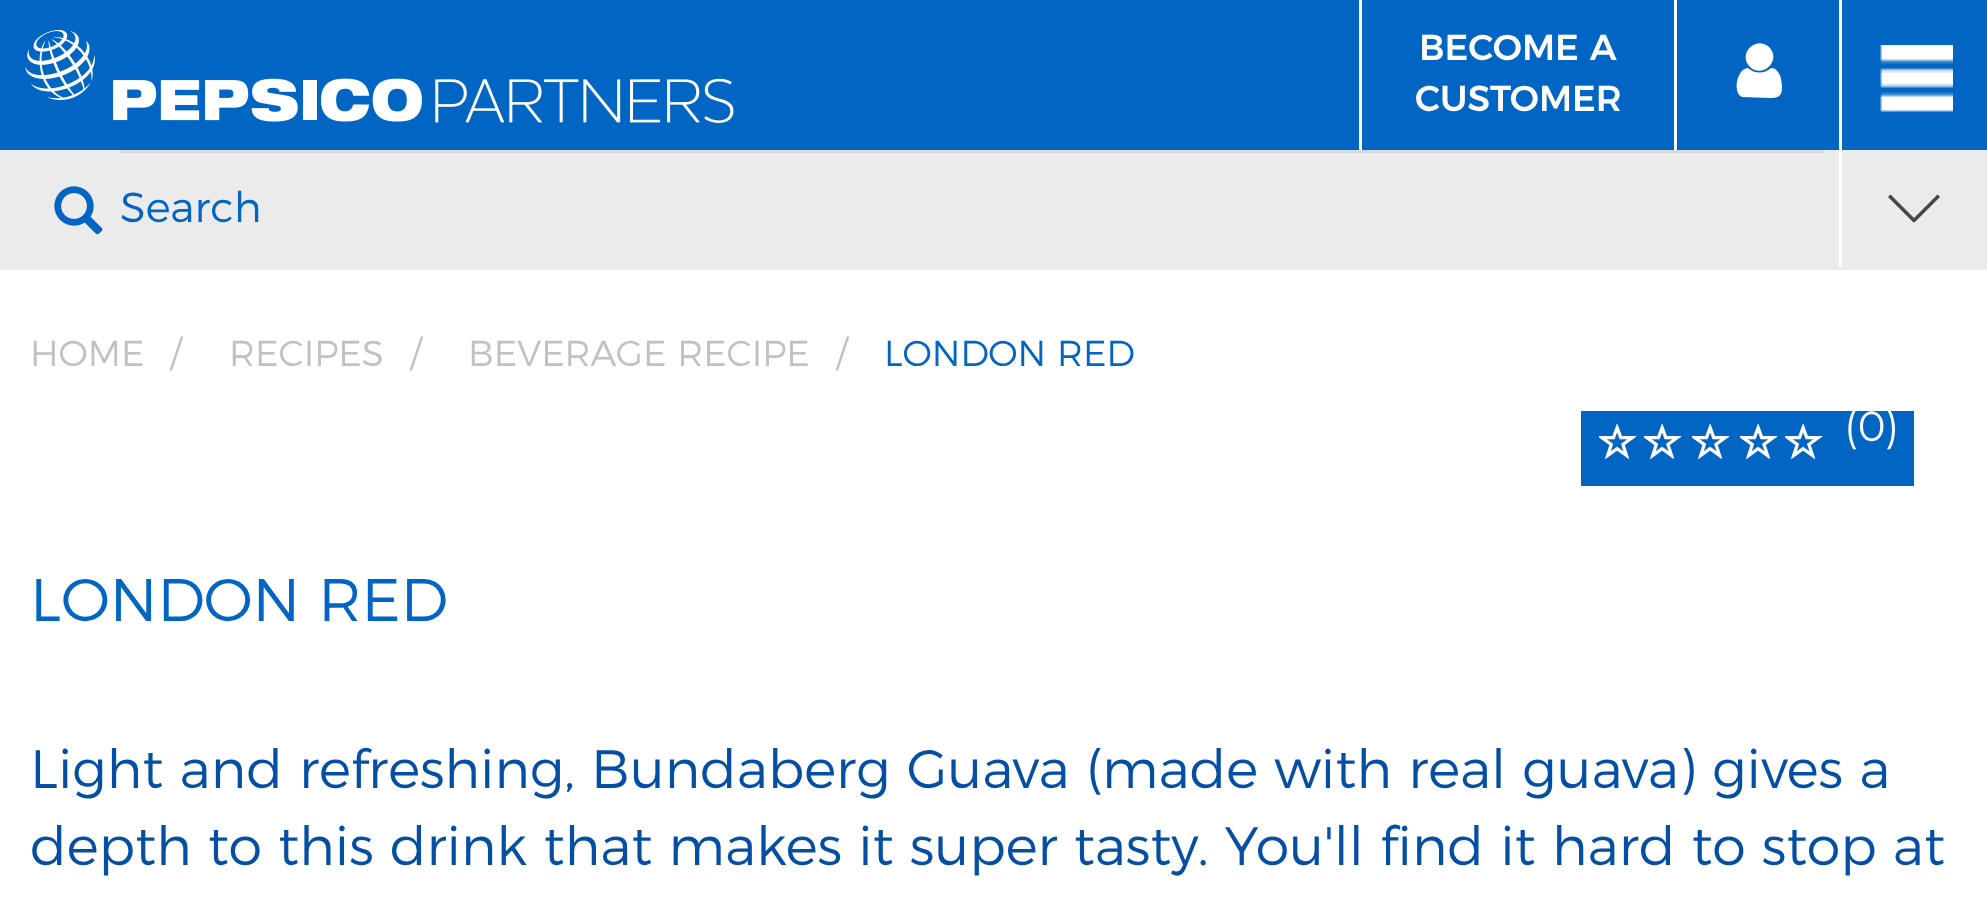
<svg xmlns="http://www.w3.org/2000/svg" width="1987" height="910" viewBox="0 0 1987 910">
  <rect width="100%" height="100%" fill="#ffffff"/>
  <rect x="0" y="0" width="1987" height="150" fill="#0065c3"/>
  <image x="25" y="30" width="709" height="93" href="img1.png"/>
  <rect x="1359" y="0" width="3" height="150" fill="#ffffff"/>
  <text x="1419" y="60" font-family="Montserrat" font-size="36" font-weight="500" fill="#ffffff">BECOME A</text>
  <text x="1415" y="111" font-family="Montserrat" font-size="36" font-weight="500" fill="#ffffff">CUSTOMER</text>
  <rect x="1674" y="0" width="3" height="150" fill="#ffffff"/>
  <path d="M1782 88C1782 97 1777 98 1770 98L1742 97C1732 93 1737 68 1748 68C1755 74 1764 74 1771 68C1780 68 1782 81 1782 88ZM1769 47C1782 60 1763 79 1750 67C1737 54 1756 35 1769 47Z" fill="#ffffff"/>
  <rect x="0" y="150" width="1987" height="120" fill="#ebebeb"/>
  <rect x="1839" y="0" width="3" height="267" fill="#ffffff"/>
  <image x="1880" y="45" width="73" height="67" href="img2.png"/>
  <image x="54" y="186" width="49" height="49" href="img3.png"/>
  <rect x="120" y="150" width="1704" height="3" fill="#d9d9d9"/>
  <text x="120" y="222" font-family="Montserrat" font-size="42" font-weight="300" fill="#0065c3">Search</text>
  <path d="M1890.5 194.5L1916 220L1913.5 222.5L1888 197Z" fill="#464646"/>
  <path d="M1912 220L1937.5 194.5L1940 197L1914.5 222.5Z" fill="#464646"/>
  <text x="30" y="366" font-family="Montserrat" font-size="36" font-weight="300" fill="#c1c1c1">HOME</text>
  <text x="170" y="366" font-family="Montserrat" font-size="36" font-weight="300" fill="#c1c1c1">/</text>
  <text x="229" y="366" font-family="Montserrat" font-size="36" font-weight="300" fill="#c1c1c1">RECIPES</text>
  <text x="410" y="366" font-family="Montserrat" font-size="36" font-weight="300" fill="#c1c1c1">/</text>
  <text x="468" y="366" font-family="Montserrat" font-size="36" font-weight="300" fill="#c1c1c1">BEVERAGE RECIPE</text>
  <text x="836" y="366" font-family="Montserrat" font-size="36" font-weight="300" fill="#c1c1c1">/</text>
  <text x="884" y="366" font-family="Montserrat" font-size="36" font-weight="300" fill="#0065c3">LONDON RED</text>
  <rect x="1581" y="411" width="333" height="75" fill="#0065c3"/>
  <image x="1599" y="424" width="38" height="35" href="img4.png"/>
  <image x="1644" y="424" width="38" height="35" href="img4.png"/>
  <image x="1692" y="424" width="38" height="35" href="img4.png"/>
  <image x="1740" y="424" width="38" height="35" href="img4.png"/>
  <image x="1785" y="424" width="38" height="35" href="img4.png"/>
  <text x="1844" y="441" font-family="Montserrat" font-size="42" fill="#ffffff">(0)</text>
  <text x="30" y="621" font-family="Montserrat" font-size="60" font-weight="300" fill="#0065c3">LONDON RED</text>
  <text x="30" y="788" font-family="Montserrat" font-size="54" font-weight="300" fill="#044fa4">Light and refreshing, Bundaberg Guava (made with real guava) gives a</text>
  <text x="30" y="865" font-family="Montserrat" font-size="54" font-weight="300" fill="#044fa4">depth to this drink that makes it super tasty. You'll find it hard to stop at</text>
</svg>
